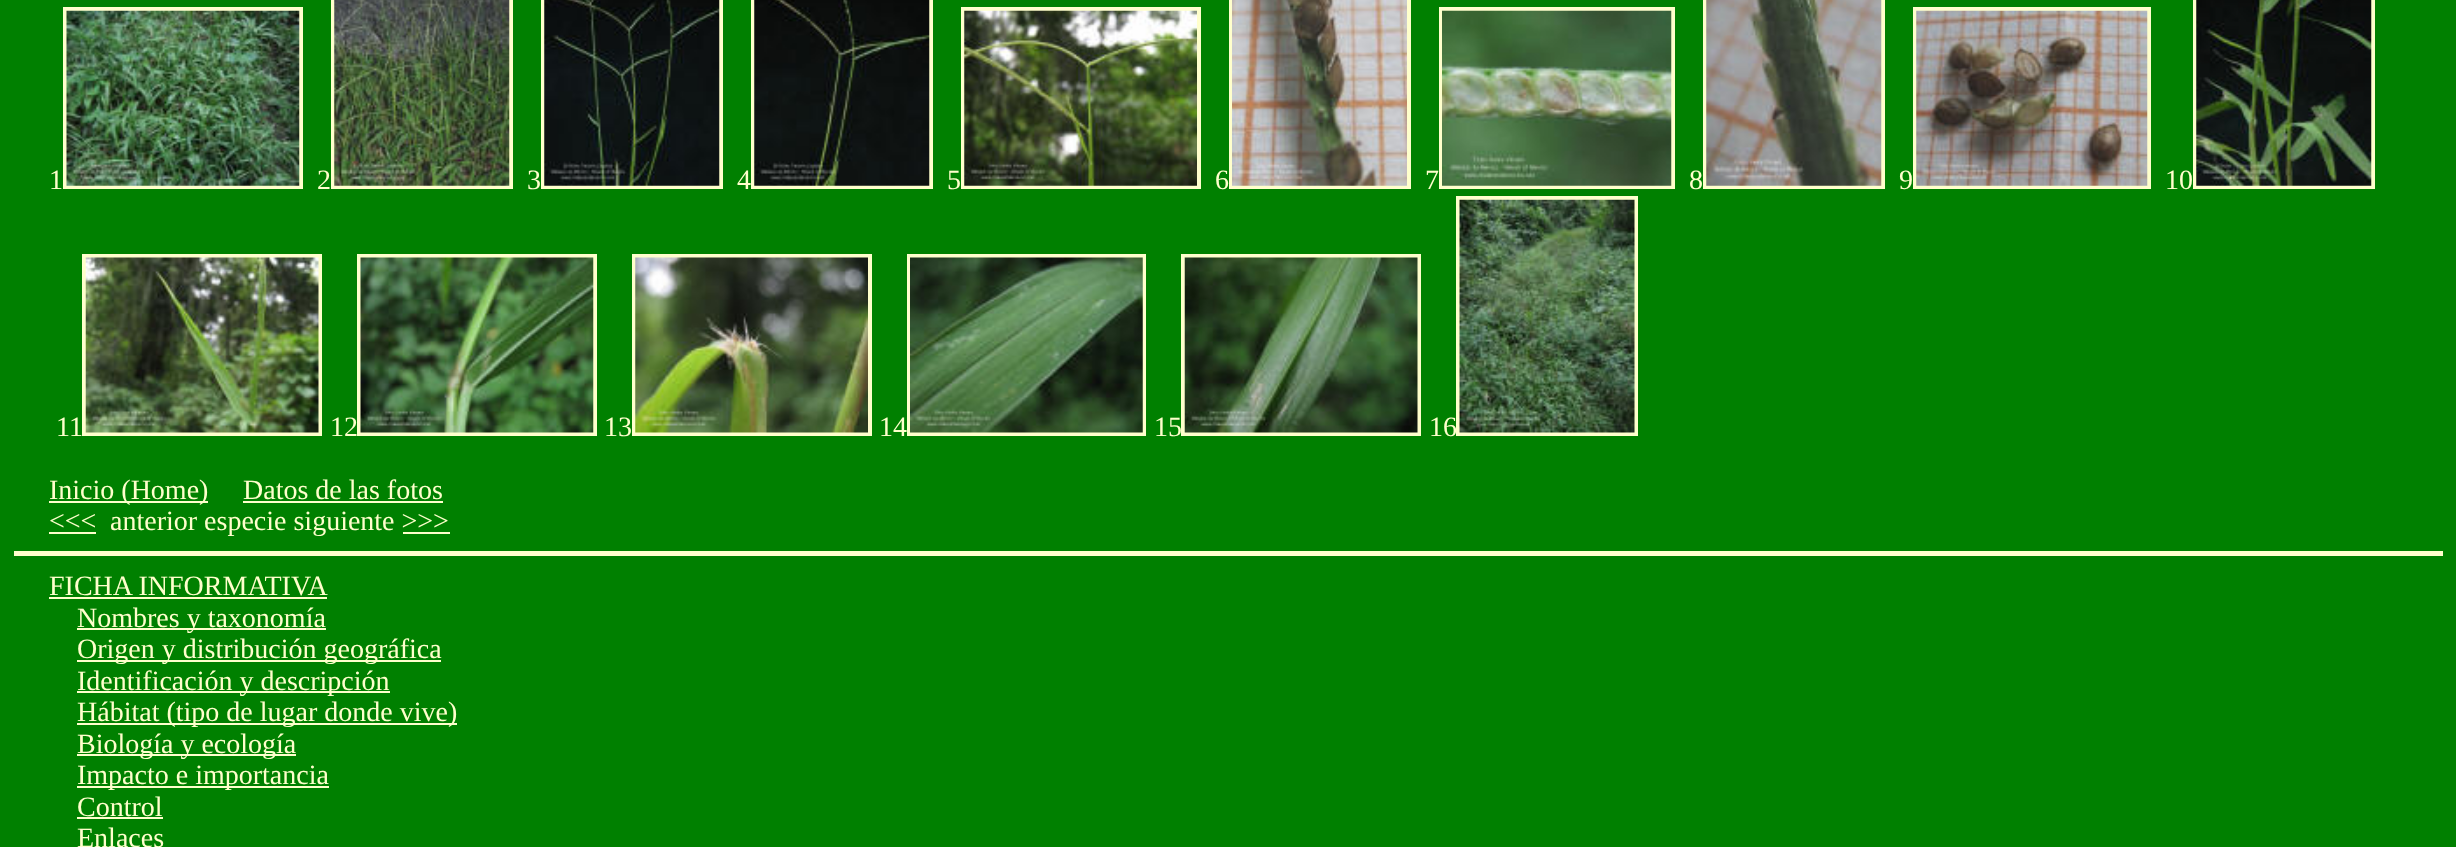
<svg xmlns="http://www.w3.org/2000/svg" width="2456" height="847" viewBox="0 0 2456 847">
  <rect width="100%" height="100%" fill="#008000"/>
  <rect x="333" y="-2" width="178" height="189" fill="none" stroke="#ffffcc" stroke-width="4"/>
  <rect x="543" y="-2" width="178" height="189" fill="none" stroke="#ffffcc" stroke-width="4"/>
  <rect x="753" y="-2" width="178" height="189" fill="none" stroke="#ffffcc" stroke-width="4"/>
  <rect x="1231" y="-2" width="178" height="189" fill="none" stroke="#ffffcc" stroke-width="4"/>
  <rect x="1705" y="-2" width="178" height="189" fill="none" stroke="#ffffcc" stroke-width="4"/>
  <rect x="2195" y="-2" width="178" height="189" fill="none" stroke="#ffffcc" stroke-width="4"/>
  <rect x="65" y="9" width="236" height="178" fill="none" stroke="#ffffcc" stroke-width="4"/>
  <image x="334" y="0" width="176" height="186" href="img1.png"/>
  <image x="544" y="0" width="176" height="186" href="img2.png"/>
  <image x="754" y="0" width="176" height="186" href="img3.png"/>
  <rect x="963" y="9" width="236" height="178" fill="none" stroke="#ffffcc" stroke-width="4"/>
  <image x="1232" y="0" width="175" height="186" href="img4.png"/>
  <rect x="1441" y="9" width="232" height="178" fill="none" stroke="#ffffcc" stroke-width="4"/>
  <image x="1706" y="0" width="176" height="186" href="img5.png"/>
  <rect x="1915" y="9" width="234" height="178" fill="none" stroke="#ffffcc" stroke-width="4"/>
  <image x="2196" y="0" width="176" height="186" href="img6.png"/>
  <text x="49" y="189" font-family="Liberation Serif" font-size="28" fill="#ffffcc">1</text>
  <image x="66" y="10" width="234" height="176" href="img7.png"/>
  <text x="317" y="189" font-family="Liberation Serif" font-size="28" fill="#ffffcc">2</text>
  <text x="527" y="189" font-family="Liberation Serif" font-size="28" fill="#ffffcc">3</text>
  <text x="737" y="189" font-family="Liberation Serif" font-size="28" fill="#ffffcc">4</text>
  <text x="947" y="189" font-family="Liberation Serif" font-size="28" fill="#ffffcc">5</text>
  <image x="964" y="10" width="233" height="176" href="img8.png"/>
  <text x="1215" y="189" font-family="Liberation Serif" font-size="28" fill="#ffffcc">6</text>
  <text x="1425" y="189" font-family="Liberation Serif" font-size="28" fill="#ffffcc">7</text>
  <image x="1442" y="10" width="230" height="176" href="img9.png"/>
  <text x="1689" y="189" font-family="Liberation Serif" font-size="28" fill="#ffffcc">8</text>
  <text x="1899" y="189" font-family="Liberation Serif" font-size="28" fill="#ffffcc">9</text>
  <image x="1916" y="10" width="232" height="176" href="img10.png"/>
  <text x="2165" y="189" font-family="Liberation Serif" font-size="28" fill="#ffffcc">10</text>
  <rect x="1458" y="198" width="178" height="236" fill="none" stroke="#ffffcc" stroke-width="4"/>
  <rect x="84" y="256" width="236" height="178" fill="none" stroke="#ffffcc" stroke-width="4"/>
  <rect x="359" y="256" width="236" height="178" fill="none" stroke="#ffffcc" stroke-width="4"/>
  <rect x="634" y="256" width="236" height="178" fill="none" stroke="#ffffcc" stroke-width="4"/>
  <rect x="909" y="256" width="235" height="178" fill="none" stroke="#ffffcc" stroke-width="4"/>
  <rect x="1183" y="256" width="236" height="178" fill="none" stroke="#ffffcc" stroke-width="4"/>
  <image x="1459" y="199" width="176" height="234" href="img11.png"/>
  <text x="56" y="436" font-family="Liberation Serif" font-size="28" fill="#ffffcc">11</text>
  <image x="85" y="257" width="234" height="176" href="img12.png"/>
  <text x="330" y="436" font-family="Liberation Serif" font-size="28" fill="#ffffcc">12</text>
  <image x="360" y="257" width="234" height="176" href="img13.png"/>
  <text x="604" y="436" font-family="Liberation Serif" font-size="28" fill="#ffffcc">13</text>
  <image x="635" y="257" width="233" height="176" href="img14.png"/>
  <text x="879" y="436" font-family="Liberation Serif" font-size="28" fill="#ffffcc">14</text>
  <image x="910" y="257" width="233" height="176" href="img15.png"/>
  <text x="1154" y="436" font-family="Liberation Serif" font-size="28" fill="#ffffcc">15</text>
  <image x="1184" y="257" width="234" height="176" href="img16.png"/>
  <text x="1429" y="436" font-family="Liberation Serif" font-size="28" fill="#ffffcc">16</text>
  <rect x="49" y="501" width="159" height="2" fill="#ffffcc"/>
  <text x="49" y="499" font-family="Liberation Serif" font-size="28" fill="#ffffcc">Inicio (Home)</text>
  <text x="243" y="499" font-family="Liberation Serif" font-size="28" fill="#ffffcc">Datos de las fotos</text>
  <rect x="243" y="501" width="200" height="2" fill="#ffffcc"/>
  <text x="49" y="530" font-family="Liberation Serif" font-size="28" fill="#ffffcc">&lt;&lt;&lt;</text>
  <rect x="49" y="532" width="47" height="2" fill="#ffffcc"/>
  <text x="110" y="530" font-family="Liberation Serif" font-size="28" fill="#ffffcc">anterior especie siguiente &gt;&gt;&gt;</text>
  <rect x="403" y="532" width="47" height="2" fill="#ffffcc"/>
  <rect x="14" y="551" width="2429" height="5" fill="#ffffcc"/>
  <text x="49" y="595" font-family="Liberation Serif" font-size="28" fill="#ffffcc">FICHA INFORMATIVA</text>
  <rect x="49" y="597" width="278" height="2" fill="#ffffcc"/>
  <rect x="77" y="628" width="249" height="2" fill="#ffffcc"/>
  <text x="77" y="627" font-family="Liberation Serif" font-size="28" fill="#ffffcc">Nombres y taxonomía</text>
  <rect x="77" y="660" width="364" height="2" fill="#ffffcc"/>
  <text x="77" y="658" font-family="Liberation Serif" font-size="28" fill="#ffffcc">Origen y distribución geográfica</text>
  <rect x="77" y="691" width="313" height="2" fill="#ffffcc"/>
  <text x="77" y="690" font-family="Liberation Serif" font-size="28" fill="#ffffcc">Identificación y descripción</text>
  <rect x="77" y="723" width="380" height="2" fill="#ffffcc"/>
  <text x="77" y="721" font-family="Liberation Serif" font-size="28" fill="#ffffcc">Hábitat (tipo de lugar donde vive)</text>
  <rect x="77" y="754" width="219" height="2" fill="#ffffcc"/>
  <text x="77" y="753" font-family="Liberation Serif" font-size="28" fill="#ffffcc">Biología y ecología</text>
  <rect x="77" y="786" width="252" height="2" fill="#ffffcc"/>
  <text x="77" y="784" font-family="Liberation Serif" font-size="28" fill="#ffffcc">Impacto e importancia</text>
  <text x="77" y="816" font-family="Liberation Serif" font-size="28" fill="#ffffcc">Control</text>
  <rect x="77" y="817" width="86" height="2" fill="#ffffcc"/>
  <text x="77" y="847" font-family="Liberation Serif" font-size="28" fill="#ffffcc">Enlaces</text>
</svg>
